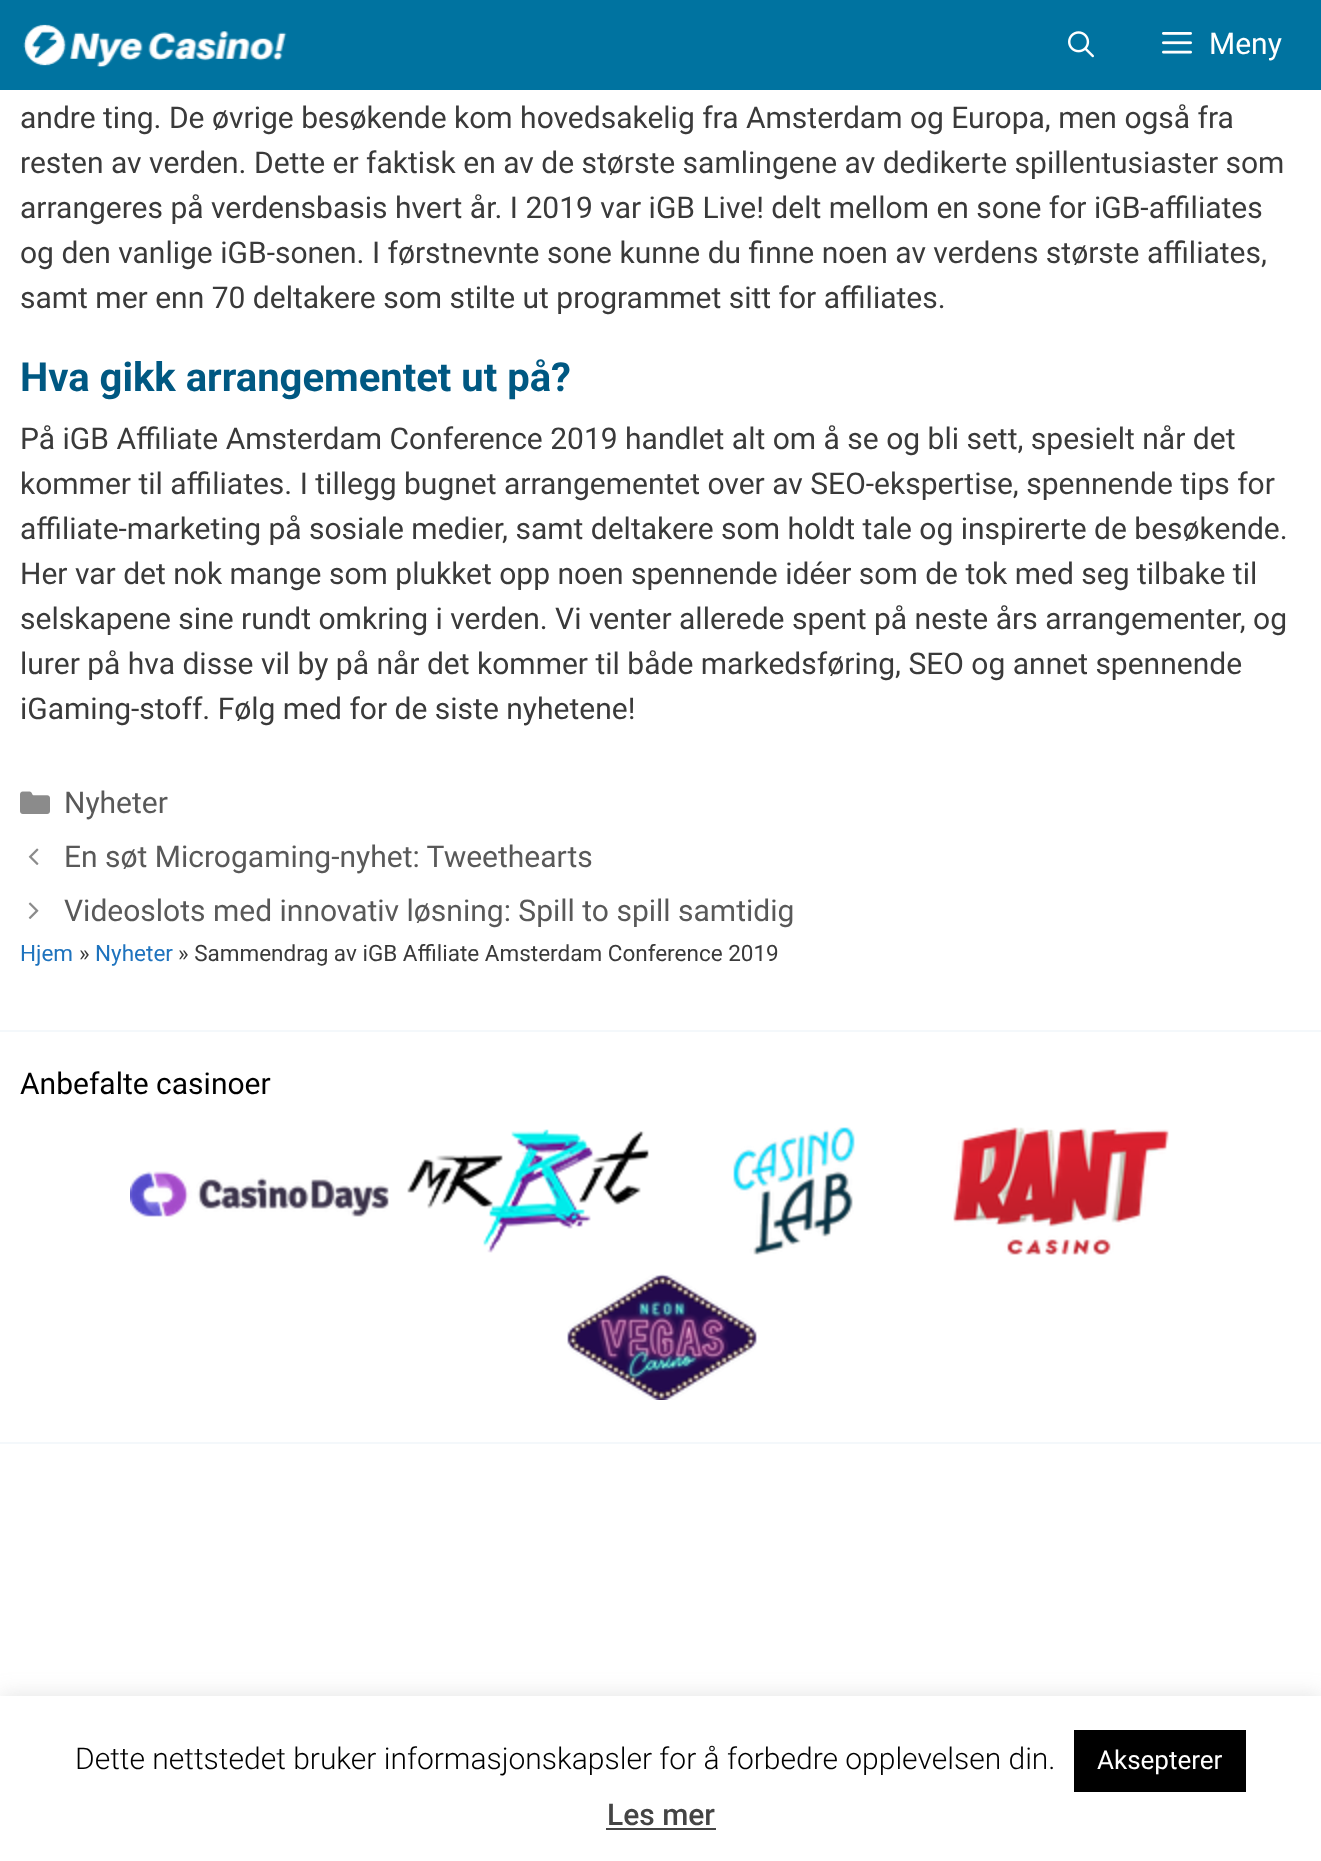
<svg xmlns="http://www.w3.org/2000/svg" width="1321" height="1861" viewBox="0 0 1321 1861">
  <defs>
    <filter id="blur1" x="-50%" y="-200%" width="200%" height="500%"><feGaussianBlur stdDeviation="10"/></filter>
  </defs>
  <rect width="100%" height="100%" fill="#f4f8fb"/>
  <rect x="0" y="0" width="1321" height="90" fill="#0073a0"/>
  <image x="23" y="24" width="264" height="44" href="img1.png"/>
  <image x="1068" y="31" width="26" height="27" href="img2.png"/>
  <image x="1162" y="32" width="30" height="22" href="img3.png"/>
  <text x="1209" y="54" font-family="Roboto" font-size="30" fill="#ffffff">Meny</text>
  <rect x="0" y="90" width="1321" height="940" fill="#ffffff"/>
  <text x="20" y="128" font-family="Roboto" font-size="30" fill="#3a3a3a">andre ting. De øvrige besøkende kom hovedsakelig fra Amsterdam og Europa, men også fra</text>
  <text x="20" y="173" font-family="Roboto" font-size="30" fill="#3a3a3a">resten av verden. Dette er faktisk en av de største samlingene av dedikerte spillentusiaster som</text>
  <text x="20" y="218" font-family="Roboto" font-size="30" fill="#3a3a3a">arrangeres på verdensbasis hvert år. I 2019 var iGB Live! delt mellom en sone for iGB-affiliates</text>
  <text x="20" y="263" font-family="Roboto" font-size="30" fill="#3a3a3a">og den vanlige iGB-sonen. I førstnevnte sone kunne du finne noen av verdens største affiliates,</text>
  <text x="20" y="308" font-family="Roboto" font-size="30" fill="#3a3a3a">samt mer enn 70 deltakere som stilte ut programmet sitt for affiliates.</text>
  <text x="20" y="391" font-family="Roboto" font-size="40" font-weight="bold" fill="#005882">Hva gikk arrangementet ut på?</text>
  <text x="20" y="449" font-family="Roboto" font-size="30" fill="#3a3a3a">På iGB Affiliate Amsterdam Conference 2019 handlet alt om å se og bli sett, spesielt når det</text>
  <text x="20" y="494" font-family="Roboto" font-size="30" fill="#3a3a3a">kommer til affiliates. I tillegg bugnet arrangementet over av SEO-ekspertise, spennende tips for</text>
  <text x="20" y="539" font-family="Roboto" font-size="30" fill="#3a3a3a">affiliate-marketing på sosiale medier, samt deltakere som holdt tale og inspirerte de besøkende.</text>
  <text x="20" y="584" font-family="Roboto" font-size="30" fill="#3a3a3a">Her var det nok mange som plukket opp noen spennende idéer som de tok med seg tilbake til</text>
  <text x="20" y="629" font-family="Roboto" font-size="30" fill="#3a3a3a">selskapene sine rundt omkring i verden. Vi venter allerede spent på neste års arrangementer, og</text>
  <text x="20" y="674" font-family="Roboto" font-size="30" fill="#3a3a3a">lurer på hva disse vil by på når det kommer til både markedsføring, SEO og annet spennende</text>
  <text x="20" y="719" font-family="Roboto" font-size="30" fill="#3a3a3a">iGaming-stoff. Følg med for de siste nyhetene!</text>
  <image x="20" y="791" width="30" height="23" href="img4.png"/>
  <text x="64" y="813" font-family="Roboto" font-size="30" fill="#595959">Nyheter</text>
  <image x="28" y="848" width="11" height="17" href="img5.png"/>
  <text x="64" y="867" font-family="Roboto" font-size="30" fill="#595959">En søt Microgaming-nyhet: Tweethearts</text>
  <image x="28" y="902" width="11" height="17" href="img6.png"/>
  <text x="64" y="921" font-family="Roboto" font-size="30" fill="#595959">Videoslots med innovativ løsning: Spill to spill samtidig</text>
  <text x="20" y="961" font-family="Roboto" font-size="22.5" fill="#1e73be">Hjem</text>
  <text x="79" y="961" font-family="Roboto" font-size="22.5" fill="#3a3a3a">»</text>
  <text x="95" y="961" font-family="Roboto" font-size="22.5" fill="#1e73be">Nyheter</text>
  <text x="178" y="961" font-family="Roboto" font-size="22.5" fill="#3a3a3a">» Sammendrag av iGB Affiliate Amsterdam Conference 2019</text>
  <rect x="0" y="1032" width="1321" height="410" fill="#ffffff"/>
  <text x="20" y="1094" font-family="Roboto" font-size="30" fill="#000000">Anbefalte casinoer</text>
  <image x="130" y="1171" width="259" height="46" href="img7.png"/>
  <image x="407" y="1129" width="242" height="124" href="img8.png"/>
  <image x="733" y="1127" width="122" height="128" href="img9.png"/>
  <image x="953" y="1127" width="216" height="128" href="img10.png"/>
  <image x="567" y="1274" width="190" height="126" href="img11.png"/>
  <rect x="0" y="1444" width="1321" height="252" fill="#ffffff"/>
  <rect x="0" y="1694" width="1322" height="166" fill="#acabab" fill-opacity="0.3" filter="url(#blur1)"/>
  <rect x="0" y="1696" width="1321" height="165" fill="#ffffff"/>
  <text x="75" y="1769" font-family="Roboto" font-size="30" font-weight="300" fill="#000000">Dette nettstedet bruker informasjonskapsler for å forbedre opplevelsen din.</text>
  <rect x="1074" y="1730" width="172" height="62" fill="#000000"/>
  <text x="1097" y="1769" font-family="Roboto" font-size="26" fill="#ffffff">Aksepterer</text>
  <text x="607" y="1825" font-family="Roboto" font-size="30" font-weight="500" fill="#444444">Les mer</text>
  <rect x="606" y="1828" width="110" height="2" fill="#444444"/>
</svg>
